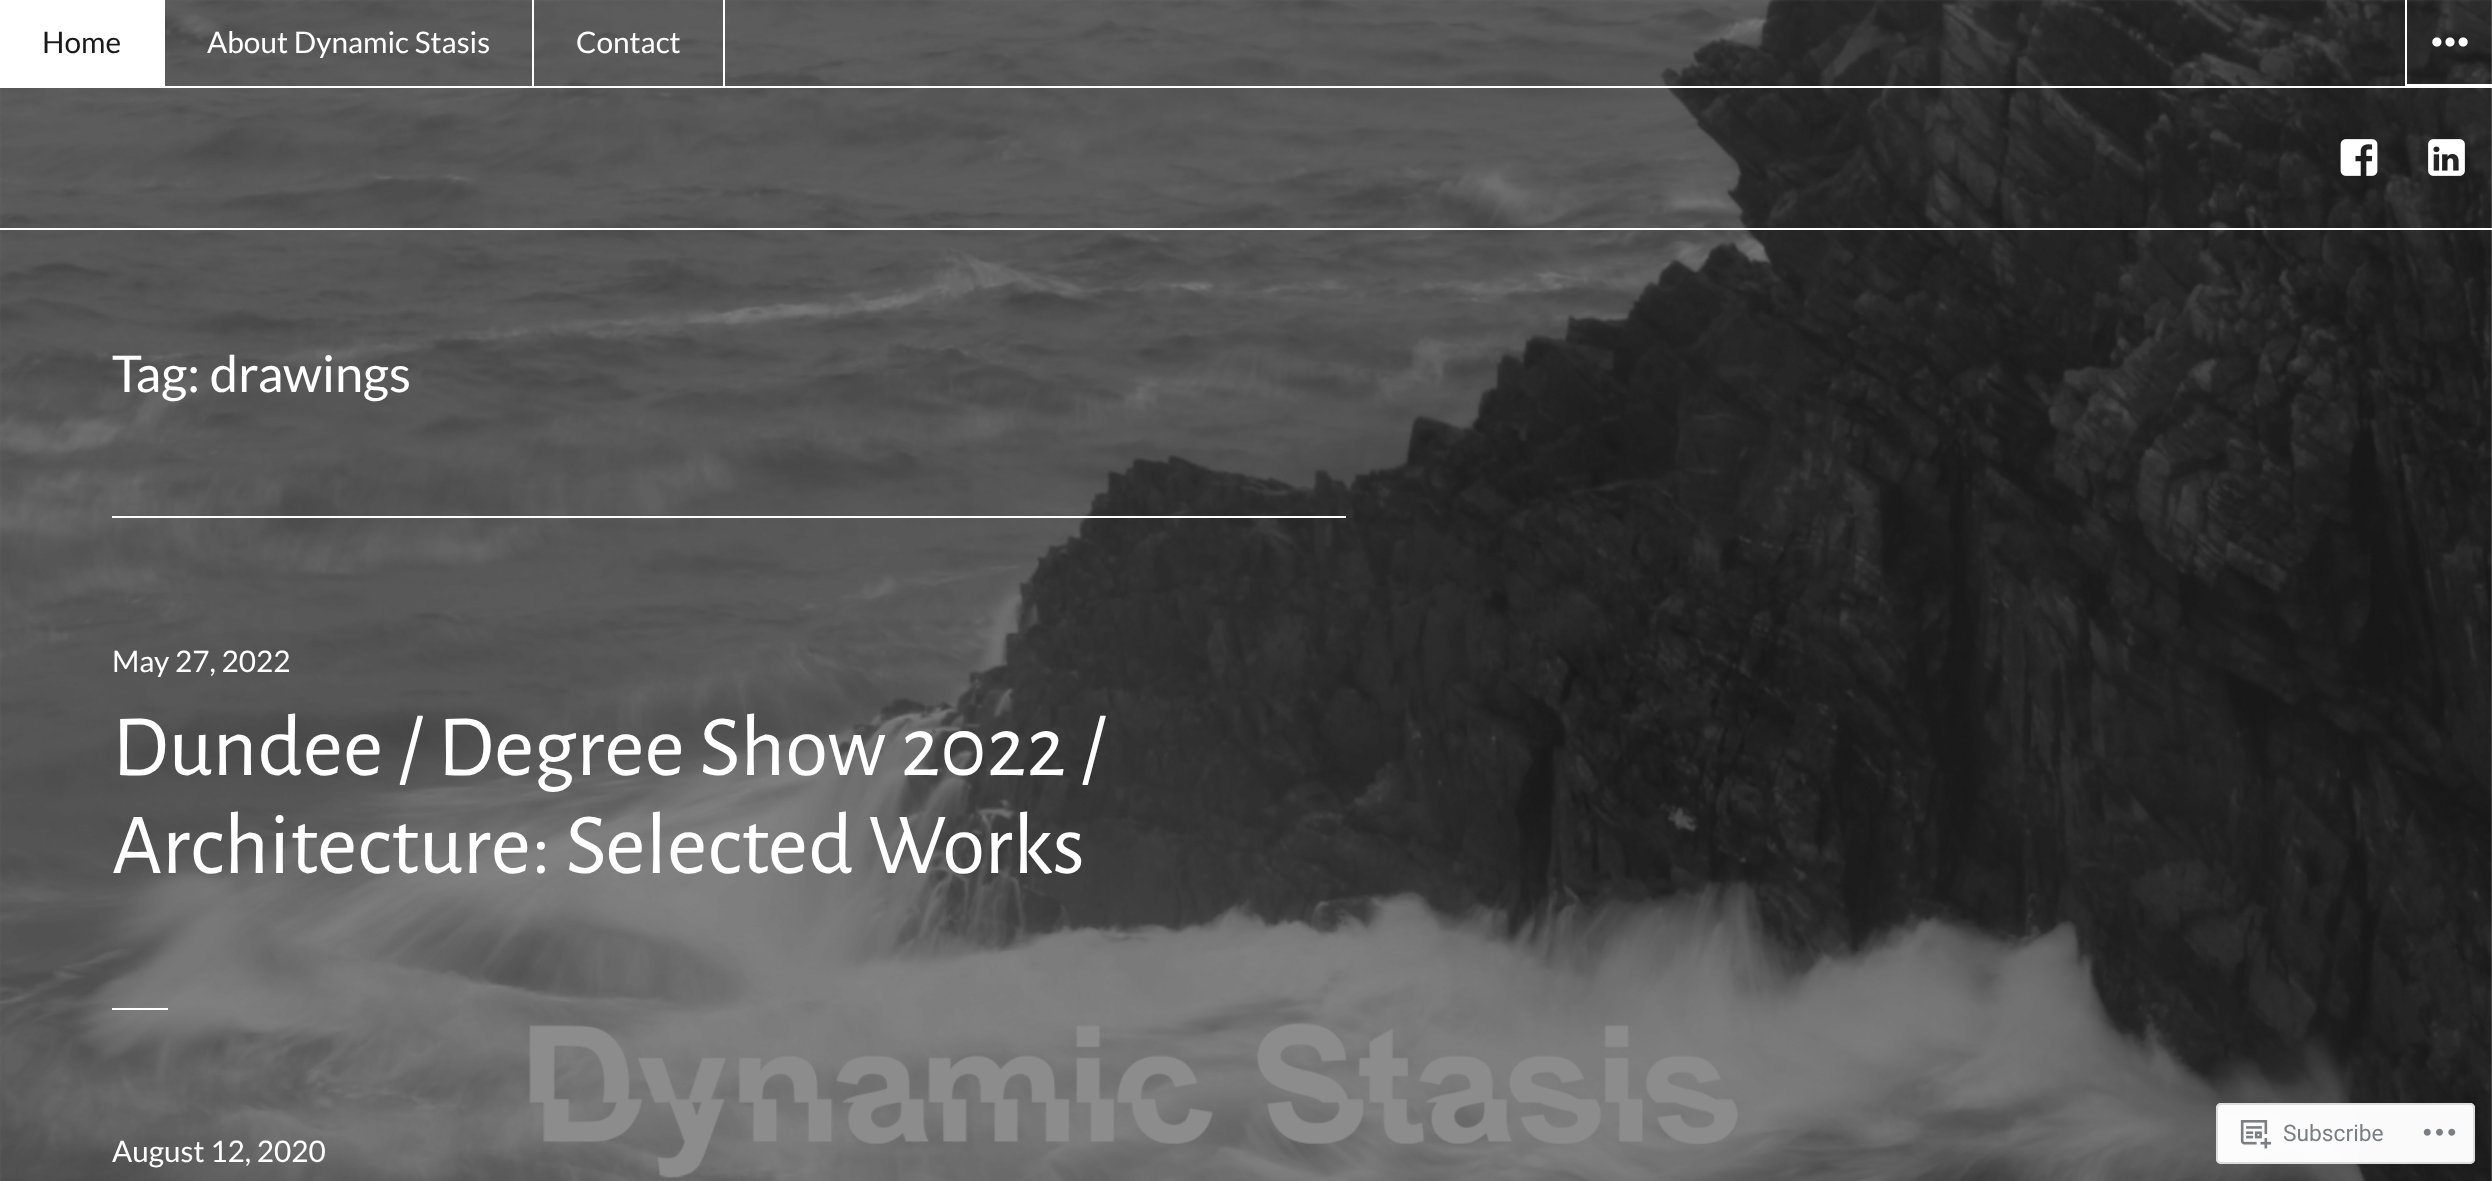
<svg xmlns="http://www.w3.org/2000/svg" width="2492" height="1181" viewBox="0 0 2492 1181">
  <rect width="100%" height="100%" fill="#ffffff"/>
  <image x="0" y="0" width="2492" height="1181" href="img1.png"/>
  <rect x="0" y="228" width="2492" height="2" fill="#ffffff"/>
  <rect x="0" y="0" width="163" height="86" fill="#ffffff"/>
  <rect x="0" y="86" width="2492" height="2" fill="#ffffff"/>
  <rect x="163" y="0" width="2" height="88" fill="#ffffff"/>
  <text x="42" y="53" font-family="Lato" font-size="29.75" fill="#1a1a1a">Home</text>
  <rect x="532" y="0" width="2" height="88" fill="#ffffff"/>
  <text x="207" y="53" font-family="Lato" font-size="29.75" fill="#ffffff">About Dynamic Stasis</text>
  <rect x="723" y="0" width="2" height="88" fill="#ffffff"/>
  <text x="576" y="53" font-family="Lato" font-size="29.75" fill="#ffffff">Contact</text>
  <rect x="2405" y="84" width="87" height="2" fill="#ffffff"/>
  <rect x="2405" y="0" width="2" height="86" fill="#ffffff"/>
  <image x="2432" y="37" width="36" height="10" href="img2.png"/>
  <image x="2340" y="139" width="38" height="37" href="img3.png"/>
  <image x="2428" y="139" width="37" height="37" href="img4.png"/>
  <rect x="112" y="516" width="1234" height="2" fill="#ffffff"/>
  <text x="112" y="392" font-family="Lato" font-size="50.75" fill="#ffffff">Tag: drawings</text>
  <text x="112" y="672" font-family="Lato" font-size="29.75" fill="#ffffff">May 27, 2022</text>
  <text x="112" y="775" font-family="Alegreya Sans" font-size="87.5" fill="#ffffff">Dundee / Degree Show 2022 /</text>
  <text x="112" y="873" font-family="Alegreya Sans" font-size="87.5" fill="#ffffff">Architecture: Selected Works</text>
  <rect x="112" y="1008" width="56" height="2" fill="#ffffff"/>
  <text x="112" y="1162" font-family="Lato" font-size="29.75" fill="#ffffff">August 12, 2020</text>
  <rect x="2216" y="1103" width="259" height="61" rx="5" fill="#ffffff" fill-opacity="0.98"/>
  <rect x="2217" y="1104" width="257" height="59" rx="4" fill="none" stroke="#dcdcde" stroke-opacity="0.98" stroke-width="2"/>
  <image x="2240" y="1120" width="32" height="29" href="img5.png"/>
  <text x="2283" y="1141" font-family="Roboto" font-size="22.75" fill="#7b7f84">Subscribe</text>
  <image x="2423" y="1128" width="33" height="8" href="img6.png"/>
</svg>
